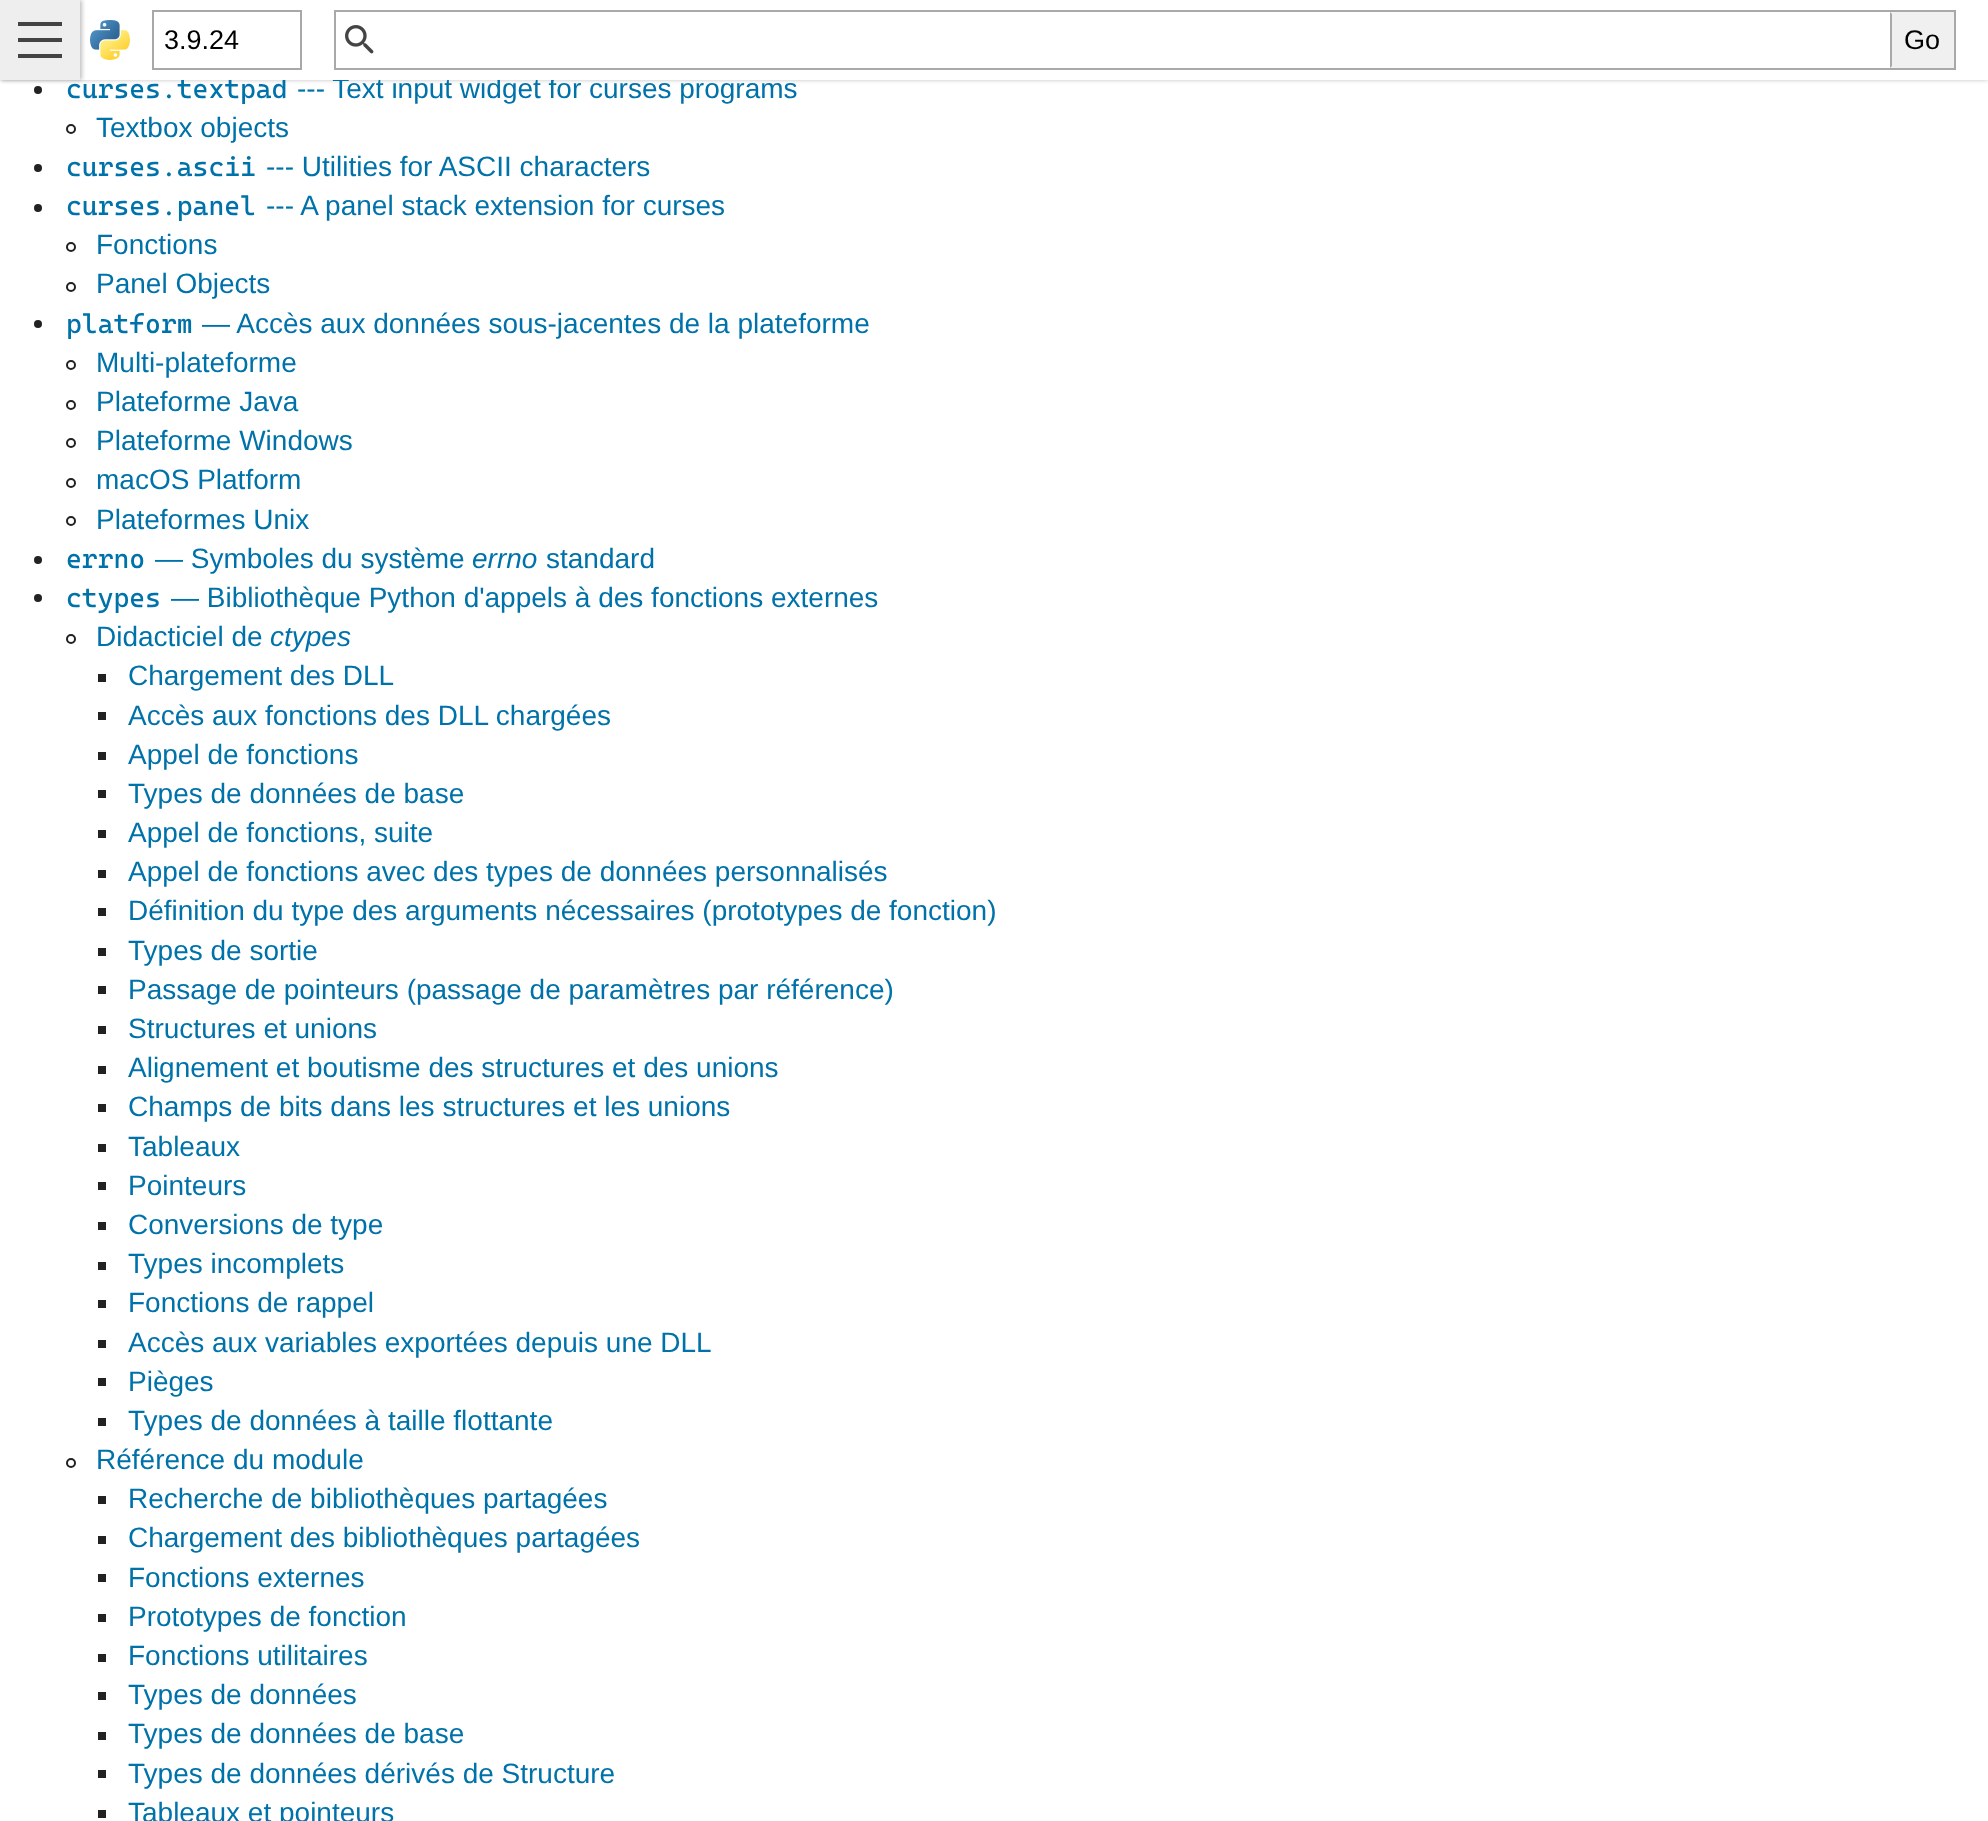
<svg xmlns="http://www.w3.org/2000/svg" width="1988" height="1821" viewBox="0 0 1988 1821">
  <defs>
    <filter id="blur1" x="-50%" y="-200%" width="200%" height="500%"><feGaussianBlur stdDeviation="2"/></filter>
  </defs>
  <rect width="100%" height="100%" fill="#ffffff"/>
  <circle cx="38" cy="90" r="4" fill="#222222"/>
  <rect x="0" y="0" width="1988" height="80" fill="#000000" fill-opacity="0.25" filter="url(#blur1)"/>
  <text x="66" y="98" font-family="Cascadia Mono" font-size="27" fill="#0072aa">curses.textpad</text>
  <text x="297" y="98" font-family="Liberation Sans" font-size="28" fill="#0072aa">--- Text input widget for curses programs</text>
  <rect x="80" y="0" width="1908" height="80" fill="#ffffff"/>
  <rect x="2" y="0" width="80" height="80" fill="#000000" fill-opacity="0.25" filter="url(#blur1)"/>
  <rect x="0" y="0" width="80" height="80" fill="#eeeeee"/>
  <rect x="18" y="38" width="44" height="4" fill="#444444"/>
  <rect x="18" y="22" width="44" height="4" fill="#444444"/>
  <rect x="18" y="54" width="44" height="4" fill="#444444"/>
  <image x="90" y="20" width="40" height="40" href="img1.png"/>
  <rect x="153" y="11" width="148" height="58" fill="none" stroke="#a8a8a8" stroke-width="2"/>
  <text x="164" y="49" font-family="Liberation Sans" font-size="27" fill="#000000">3.9.24</text>
  <rect x="335" y="11" width="1620" height="58" fill="none" stroke="#a9a9a9" stroke-width="2"/>
  <image x="345" y="25" width="29" height="29" href="img2.png"/>
  <rect x="1890" y="12" width="64" height="56" fill="#f0f0f0"/>
  <path d="M1890 68V12L1892 14V66Z" fill="#a9a9a9"/>
  <text x="1904" y="49" font-family="Liberation Sans" font-size="27" fill="#000000">Go</text>
  <circle cx="71" cy="129" r="4" fill="none" stroke="#222222" stroke-width="2"/>
  <text x="96" y="137" font-family="Liberation Sans" font-size="28" fill="#0072aa">Textbox objects</text>
  <circle cx="38" cy="168" r="4" fill="#222222"/>
  <text x="66" y="176" font-family="Cascadia Mono" font-size="27" fill="#0072aa">curses.ascii</text>
  <text x="266" y="176" font-family="Liberation Sans" font-size="28" fill="#0072aa">--- Utilities for ASCII characters</text>
  <circle cx="38" cy="208" r="4" fill="#222222"/>
  <text x="66" y="215" font-family="Cascadia Mono" font-size="27" fill="#0072aa">curses.panel</text>
  <text x="266" y="215" font-family="Liberation Sans" font-size="28" fill="#0072aa">--- A panel stack extension for curses</text>
  <circle cx="71" cy="247" r="4" fill="none" stroke="#222222" stroke-width="2"/>
  <text x="96" y="254" font-family="Liberation Sans" font-size="28" fill="#0072aa">Fonctions</text>
  <circle cx="71" cy="287" r="4" fill="none" stroke="#222222" stroke-width="2"/>
  <text x="96" y="293" font-family="Liberation Sans" font-size="28" fill="#0072aa">Panel Objects</text>
  <circle cx="38" cy="324" r="4" fill="#222222"/>
  <text x="66" y="333" font-family="Cascadia Mono" font-size="27" fill="#0072aa">platform</text>
  <text x="202" y="333" font-family="Liberation Sans" font-size="28" fill="#0072aa">— Accès aux données sous-jacentes de la plateforme</text>
  <circle cx="71" cy="365" r="4" fill="none" stroke="#222222" stroke-width="2"/>
  <text x="96" y="372" font-family="Liberation Sans" font-size="28" fill="#0072aa">Multi-plateforme</text>
  <circle cx="71" cy="405" r="4" fill="none" stroke="#222222" stroke-width="2"/>
  <text x="96" y="411" font-family="Liberation Sans" font-size="28" fill="#0072aa">Plateforme Java</text>
  <circle cx="71" cy="443" r="4" fill="none" stroke="#222222" stroke-width="2"/>
  <text x="96" y="450" font-family="Liberation Sans" font-size="28" fill="#0072aa">Plateforme Windows</text>
  <circle cx="71" cy="483" r="4" fill="none" stroke="#222222" stroke-width="2"/>
  <text x="96" y="489" font-family="Liberation Sans" font-size="28" fill="#0072aa">macOS Platform</text>
  <circle cx="71" cy="521" r="4" fill="none" stroke="#222222" stroke-width="2"/>
  <text x="96" y="529" font-family="Liberation Sans" font-size="28" fill="#0072aa">Plateformes Unix</text>
  <circle cx="38" cy="560" r="4" fill="#222222"/>
  <text x="66" y="568" font-family="Cascadia Mono" font-size="27" fill="#0072aa">errno</text>
  <text x="155" y="568" font-family="Liberation Sans" font-size="28" fill="#0072aa">— Symboles du système</text>
  <text x="472" y="568" font-family="Liberation Sans" font-size="28" font-style="italic" fill="#0072aa">errno</text>
  <text x="546" y="568" font-family="Liberation Sans" font-size="28" fill="#0072aa">standard</text>
  <circle cx="38" cy="598" r="4" fill="#222222"/>
  <text x="66" y="607" font-family="Cascadia Mono" font-size="27" fill="#0072aa">ctypes</text>
  <text x="171" y="607" font-family="Liberation Sans" font-size="28" fill="#0072aa">— Bibliothèque Python d'appels à des fonctions externes</text>
  <circle cx="71" cy="639" r="4" fill="none" stroke="#222222" stroke-width="2"/>
  <text x="96" y="646" font-family="Liberation Sans" font-size="28" fill="#0072aa">Didacticiel de</text>
  <text x="270" y="646" font-family="Liberation Sans" font-size="28" font-style="italic" fill="#0072aa">ctypes</text>
  <rect x="98" y="674" width="8" height="8" fill="#222222"/>
  <text x="128" y="685" font-family="Liberation Sans" font-size="28" fill="#0072aa">Chargement des DLL</text>
  <rect x="98" y="712" width="8" height="8" fill="#222222"/>
  <text x="128" y="725" font-family="Liberation Sans" font-size="28" fill="#0072aa">Accès aux fonctions des DLL chargées</text>
  <rect x="98" y="752" width="8" height="8" fill="#222222"/>
  <text x="128" y="764" font-family="Liberation Sans" font-size="28" fill="#0072aa">Appel de fonctions</text>
  <rect x="98" y="790" width="8" height="8" fill="#222222"/>
  <text x="128" y="803" font-family="Liberation Sans" font-size="28" fill="#0072aa">Types de données de base</text>
  <rect x="98" y="830" width="8" height="8" fill="#222222"/>
  <text x="128" y="842" font-family="Liberation Sans" font-size="28" fill="#0072aa">Appel de fonctions, suite</text>
  <rect x="98" y="870" width="8" height="8" fill="#222222"/>
  <text x="128" y="881" font-family="Liberation Sans" font-size="28" fill="#0072aa">Appel de fonctions avec des types de données personnalisés</text>
  <rect x="98" y="908" width="8" height="8" fill="#222222"/>
  <text x="128" y="920" font-family="Liberation Sans" font-size="28" fill="#0072aa">Définition du type des arguments nécessaires (prototypes de fonction)</text>
  <rect x="98" y="948" width="8" height="8" fill="#222222"/>
  <text x="128" y="960" font-family="Liberation Sans" font-size="28" fill="#0072aa">Types de sortie</text>
  <rect x="98" y="986" width="8" height="8" fill="#222222"/>
  <text x="128" y="999" font-family="Liberation Sans" font-size="28" fill="#0072aa">Passage de pointeurs (passage de paramètres par référence)</text>
  <rect x="98" y="1026" width="8" height="8" fill="#222222"/>
  <text x="128" y="1038" font-family="Liberation Sans" font-size="28" fill="#0072aa">Structures et unions</text>
  <rect x="98" y="1066" width="8" height="8" fill="#222222"/>
  <text x="128" y="1077" font-family="Liberation Sans" font-size="28" fill="#0072aa">Alignement et boutisme des structures et des unions</text>
  <rect x="98" y="1104" width="8" height="8" fill="#222222"/>
  <text x="128" y="1116" font-family="Liberation Sans" font-size="28" fill="#0072aa">Champs de bits dans les structures et les unions</text>
  <rect x="98" y="1144" width="8" height="8" fill="#222222"/>
  <text x="128" y="1156" font-family="Liberation Sans" font-size="28" fill="#0072aa">Tableaux</text>
  <rect x="98" y="1182" width="8" height="8" fill="#222222"/>
  <text x="128" y="1195" font-family="Liberation Sans" font-size="28" fill="#0072aa">Pointeurs</text>
  <rect x="98" y="1222" width="8" height="8" fill="#222222"/>
  <text x="128" y="1234" font-family="Liberation Sans" font-size="28" fill="#0072aa">Conversions de type</text>
  <rect x="98" y="1262" width="8" height="8" fill="#222222"/>
  <text x="128" y="1273" font-family="Liberation Sans" font-size="28" fill="#0072aa">Types incomplets</text>
  <rect x="98" y="1300" width="8" height="8" fill="#222222"/>
  <text x="128" y="1312" font-family="Liberation Sans" font-size="28" fill="#0072aa">Fonctions de rappel</text>
  <rect x="98" y="1340" width="8" height="8" fill="#222222"/>
  <text x="128" y="1352" font-family="Liberation Sans" font-size="28" fill="#0072aa">Accès aux variables exportées depuis une DLL</text>
  <rect x="98" y="1378" width="8" height="8" fill="#222222"/>
  <text x="128" y="1391" font-family="Liberation Sans" font-size="28" fill="#0072aa">Pièges</text>
  <rect x="98" y="1418" width="8" height="8" fill="#222222"/>
  <text x="128" y="1430" font-family="Liberation Sans" font-size="28" fill="#0072aa">Types de données à taille flottante</text>
  <circle cx="71" cy="1463" r="4" fill="none" stroke="#222222" stroke-width="2"/>
  <text x="96" y="1469" font-family="Liberation Sans" font-size="28" fill="#0072aa">Référence du module</text>
  <rect x="98" y="1496" width="8" height="8" fill="#222222"/>
  <text x="128" y="1508" font-family="Liberation Sans" font-size="28" fill="#0072aa">Recherche de bibliothèques partagées</text>
  <rect x="98" y="1536" width="8" height="8" fill="#222222"/>
  <text x="128" y="1547" font-family="Liberation Sans" font-size="28" fill="#0072aa">Chargement des bibliothèques partagées</text>
  <rect x="98" y="1574" width="8" height="8" fill="#222222"/>
  <text x="128" y="1587" font-family="Liberation Sans" font-size="28" fill="#0072aa">Fonctions externes</text>
  <rect x="98" y="1614" width="8" height="8" fill="#222222"/>
  <text x="128" y="1626" font-family="Liberation Sans" font-size="28" fill="#0072aa">Prototypes de fonction</text>
  <rect x="98" y="1654" width="8" height="8" fill="#222222"/>
  <text x="128" y="1665" font-family="Liberation Sans" font-size="28" fill="#0072aa">Fonctions utilitaires</text>
  <rect x="98" y="1692" width="8" height="8" fill="#222222"/>
  <text x="128" y="1704" font-family="Liberation Sans" font-size="28" fill="#0072aa">Types de données</text>
  <rect x="98" y="1732" width="8" height="8" fill="#222222"/>
  <text x="128" y="1743" font-family="Liberation Sans" font-size="28" fill="#0072aa">Types de données de base</text>
  <rect x="98" y="1770" width="8" height="8" fill="#222222"/>
  <text x="128" y="1783" font-family="Liberation Sans" font-size="28" fill="#0072aa">Types de données dérivés de Structure</text>
  <rect x="98" y="1810" width="8" height="8" fill="#222222"/>
  <text x="128" y="1822" font-family="Liberation Sans" font-size="28" fill="#0072aa">Tableaux et pointeurs</text>
</svg>
